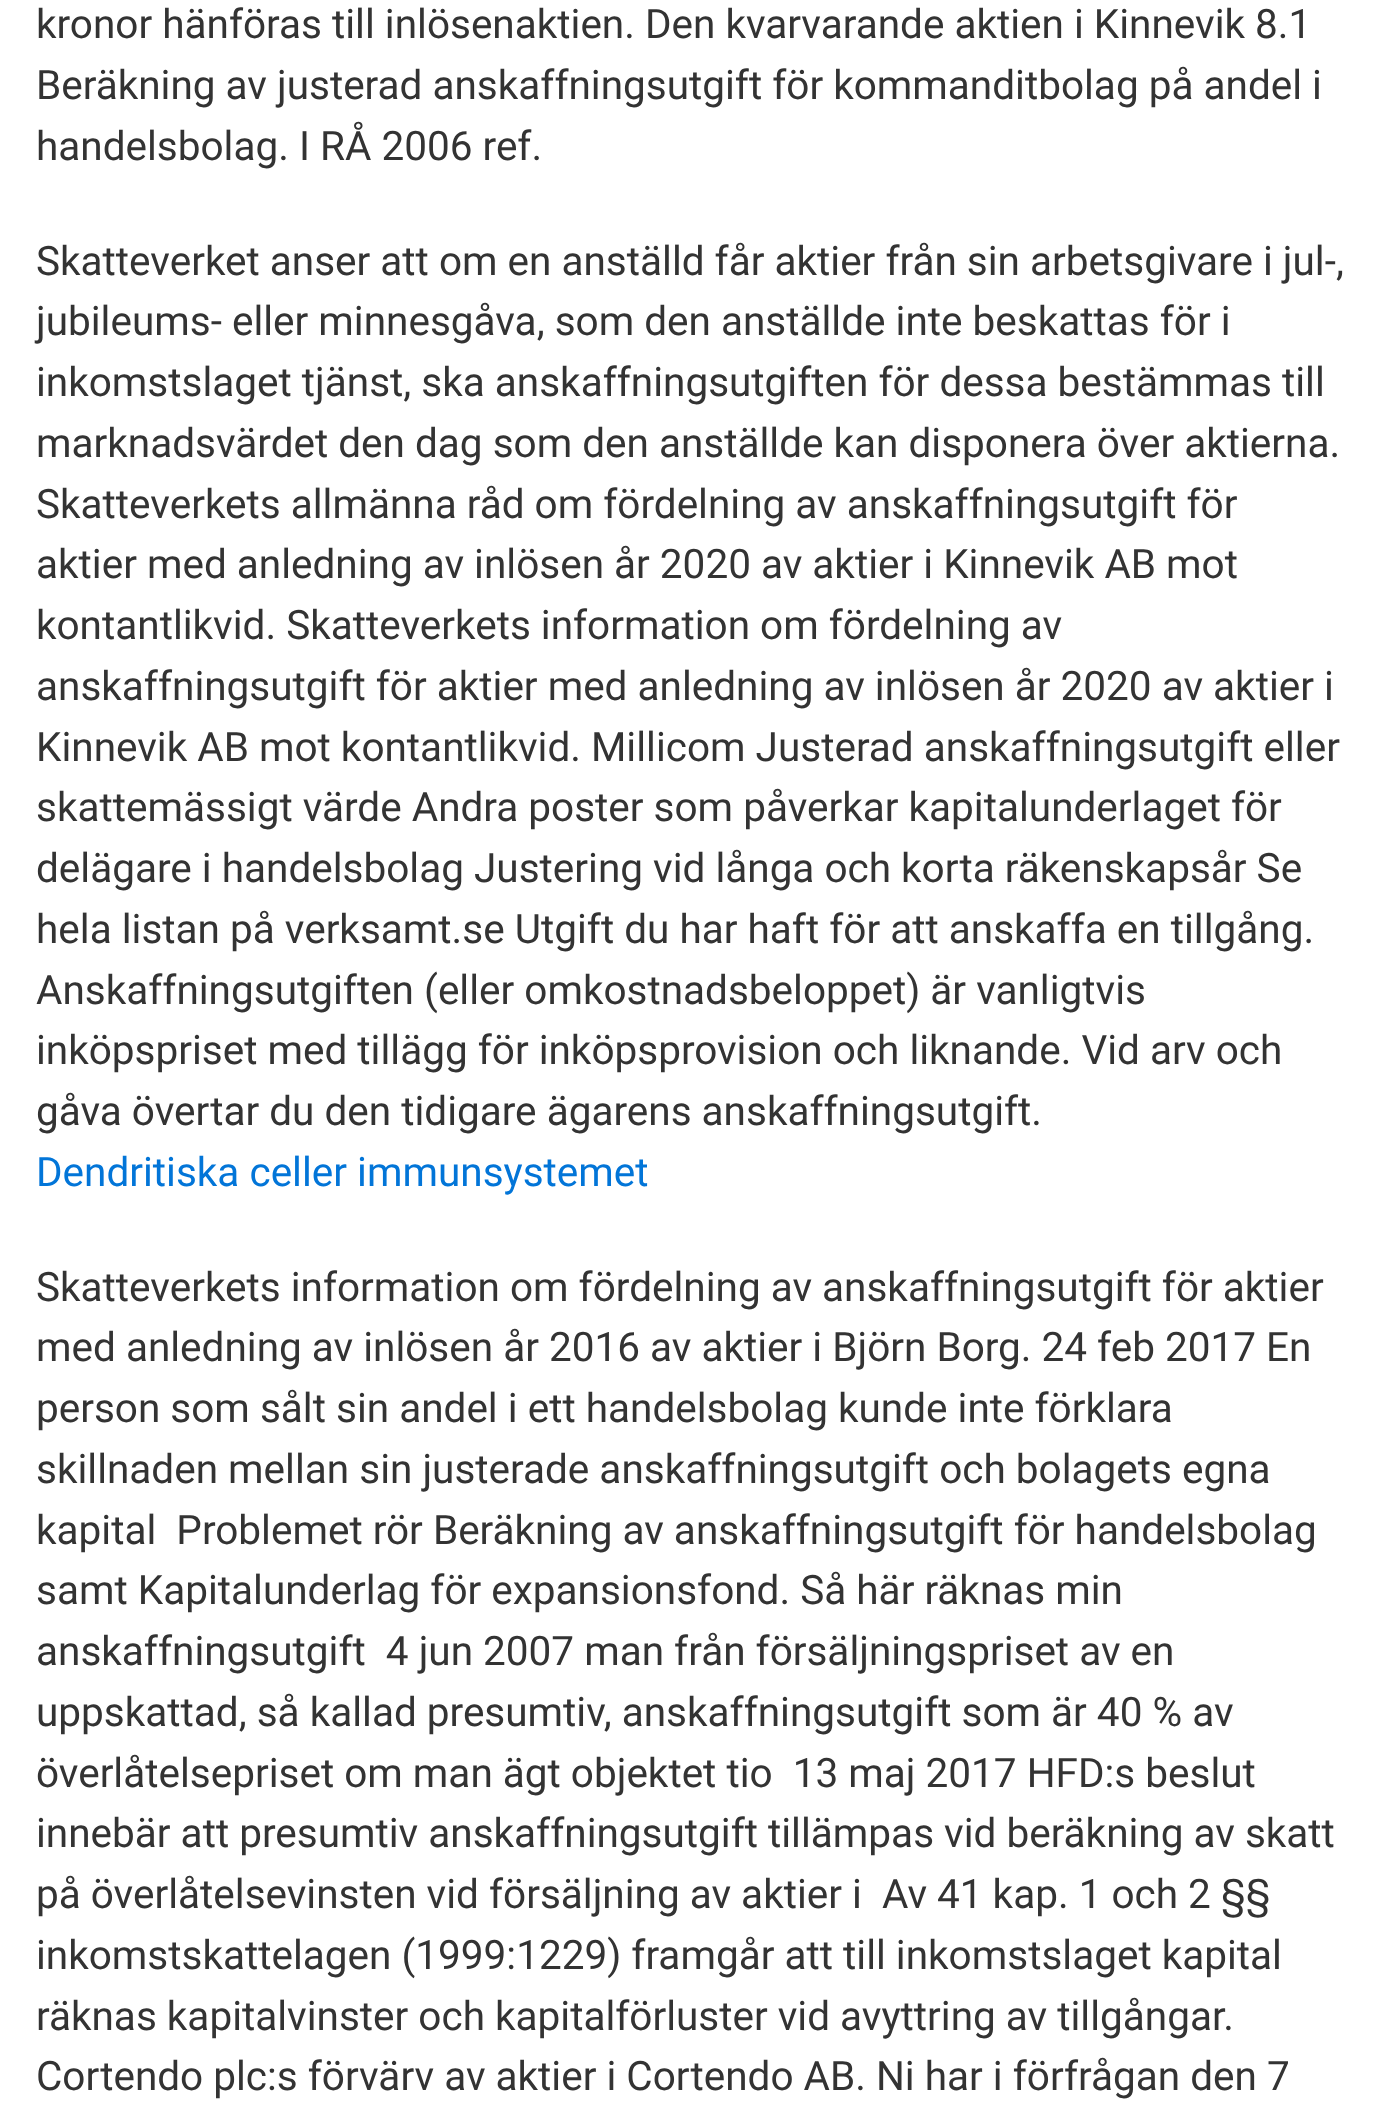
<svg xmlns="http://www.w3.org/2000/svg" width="1382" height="2123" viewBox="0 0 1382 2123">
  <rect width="100%" height="100%" fill="#ffffff"/>
  <text x="36" y="38" font-family="Roboto" font-size="40.5" fill="#333333">kronor hänföras till inlösenaktien. Den kvarvarande aktien i Kinnevik 8.1</text>
  <text x="36" y="99" font-family="Roboto" font-size="40.5" fill="#333333">Beräkning av justerad anskaffningsutgift för kommanditbolag på andel i</text>
  <text x="36" y="160" font-family="Roboto" font-size="40.5" fill="#333333">handelsbolag. I RÅ 2006 ref.</text>
  <text x="36" y="275" font-family="Roboto" font-size="40.5" fill="#333333">Skatteverket anser att om en anställd får aktier från sin arbetsgivare i jul-,</text>
  <text x="36" y="335" font-family="Roboto" font-size="40.5" fill="#333333">jubileums- eller minnesgåva, som den anställde inte beskattas för i</text>
  <text x="36" y="396" font-family="Roboto" font-size="40.5" fill="#333333">inkomstslaget tjänst, ska anskaffningsutgiften för dessa bestämmas till</text>
  <text x="36" y="457" font-family="Roboto" font-size="40.5" fill="#333333">marknadsvärdet den dag som den anställde kan disponera över aktierna.</text>
  <text x="36" y="518" font-family="Roboto" font-size="40.5" fill="#333333">Skatteverkets allmänna råd om fördelning av anskaffningsutgift för</text>
  <text x="36" y="578" font-family="Roboto" font-size="40.5" fill="#333333">aktier med anledning av inlösen år 2020 av aktier i Kinnevik AB mot</text>
  <text x="36" y="639" font-family="Roboto" font-size="40.5" fill="#333333">kontantlikvid. Skatteverkets information om fördelning av</text>
  <text x="36" y="700" font-family="Roboto" font-size="40.5" fill="#333333">anskaffningsutgift för aktier med anledning av inlösen år 2020 av aktier i</text>
  <text x="36" y="761" font-family="Roboto" font-size="40.5" fill="#333333">Kinnevik AB mot kontantlikvid. Millicom Justerad anskaffningsutgift eller</text>
  <text x="36" y="821" font-family="Roboto" font-size="40.5" fill="#333333">skattemässigt värde Andra poster som påverkar kapitalunderlaget för</text>
  <text x="36" y="882" font-family="Roboto" font-size="40.5" fill="#333333">delägare i handelsbolag Justering vid långa och korta räkenskapsår Se</text>
  <text x="36" y="943" font-family="Roboto" font-size="40.5" fill="#333333">hela listan på verksamt.se Utgift du har haft för att anskaffa en tillgång.</text>
  <text x="36" y="1004" font-family="Roboto" font-size="40.5" fill="#333333">Anskaffningsutgiften (eller omkostnadsbeloppet) är vanligtvis</text>
  <text x="36" y="1064" font-family="Roboto" font-size="40.5" fill="#333333">inköpspriset med tillägg för inköpsprovision och liknande. Vid arv och</text>
  <text x="36" y="1125" font-family="Roboto" font-size="40.5" fill="#333333">gåva övertar du den tidigare ägarens anskaffningsutgift.</text>
  <text x="36" y="1186" font-family="Roboto" font-size="40.5" fill="#0275d8">Dendritiska celler immunsystemet</text>
  <text x="36" y="1301" font-family="Roboto" font-size="40.5" fill="#333333">Skatteverkets information om fördelning av anskaffningsutgift för aktier</text>
  <text x="36" y="1361" font-family="Roboto" font-size="40.5" fill="#333333">med anledning av inlösen år 2016 av aktier i Björn Borg. 24 feb 2017 En</text>
  <text x="36" y="1422" font-family="Roboto" font-size="40.5" fill="#333333">person som sålt sin andel i ett handelsbolag kunde inte förklara</text>
  <text x="36" y="1483" font-family="Roboto" font-size="40.5" fill="#333333">skillnaden mellan sin justerade anskaffningsutgift och bolagets egna</text>
  <text x="36" y="1544" font-family="Roboto" font-size="40.5" fill="#333333" xml:space="preserve">kapital  Problemet rör Beräkning av anskaffningsutgift för handelsbolag</text>
  <text x="36" y="1604" font-family="Roboto" font-size="40.5" fill="#333333">samt Kapitalunderlag för expansionsfond. Så här räknas min</text>
  <text x="36" y="1665" font-family="Roboto" font-size="40.5" fill="#333333" xml:space="preserve">anskaffningsutgift  4 jun 2007 man från försäljningspriset av en</text>
  <text x="36" y="1726" font-family="Roboto" font-size="40.5" fill="#333333">uppskattad, så kallad presumtiv, anskaffningsutgift som är 40 % av</text>
  <text x="36" y="1787" font-family="Roboto" font-size="40.5" fill="#333333" xml:space="preserve">överlåtelsepriset om man ägt objektet tio  13 maj 2017 HFD:s beslut</text>
  <text x="36" y="1847" font-family="Roboto" font-size="40.5" fill="#333333">innebär att presumtiv anskaffningsutgift tillämpas vid beräkning av skatt</text>
  <text x="36" y="1908" font-family="Roboto" font-size="40.5" fill="#333333" xml:space="preserve">på överlåtelsevinsten vid försäljning av aktier i  Av 41 kap. 1 och 2 §§</text>
  <text x="36" y="1969" font-family="Roboto" font-size="40.5" fill="#333333">inkomstskattelagen (1999:1229) framgår att till inkomstslaget kapital</text>
  <text x="36" y="2030" font-family="Roboto" font-size="40.5" fill="#333333">räknas kapitalvinster och kapitalförluster vid avyttring av tillgångar.</text>
  <text x="36" y="2090" font-family="Roboto" font-size="40.5" fill="#333333">Cortendo plc:s förvärv av aktier i Cortendo AB. Ni har i förfrågan den 7</text>
</svg>
